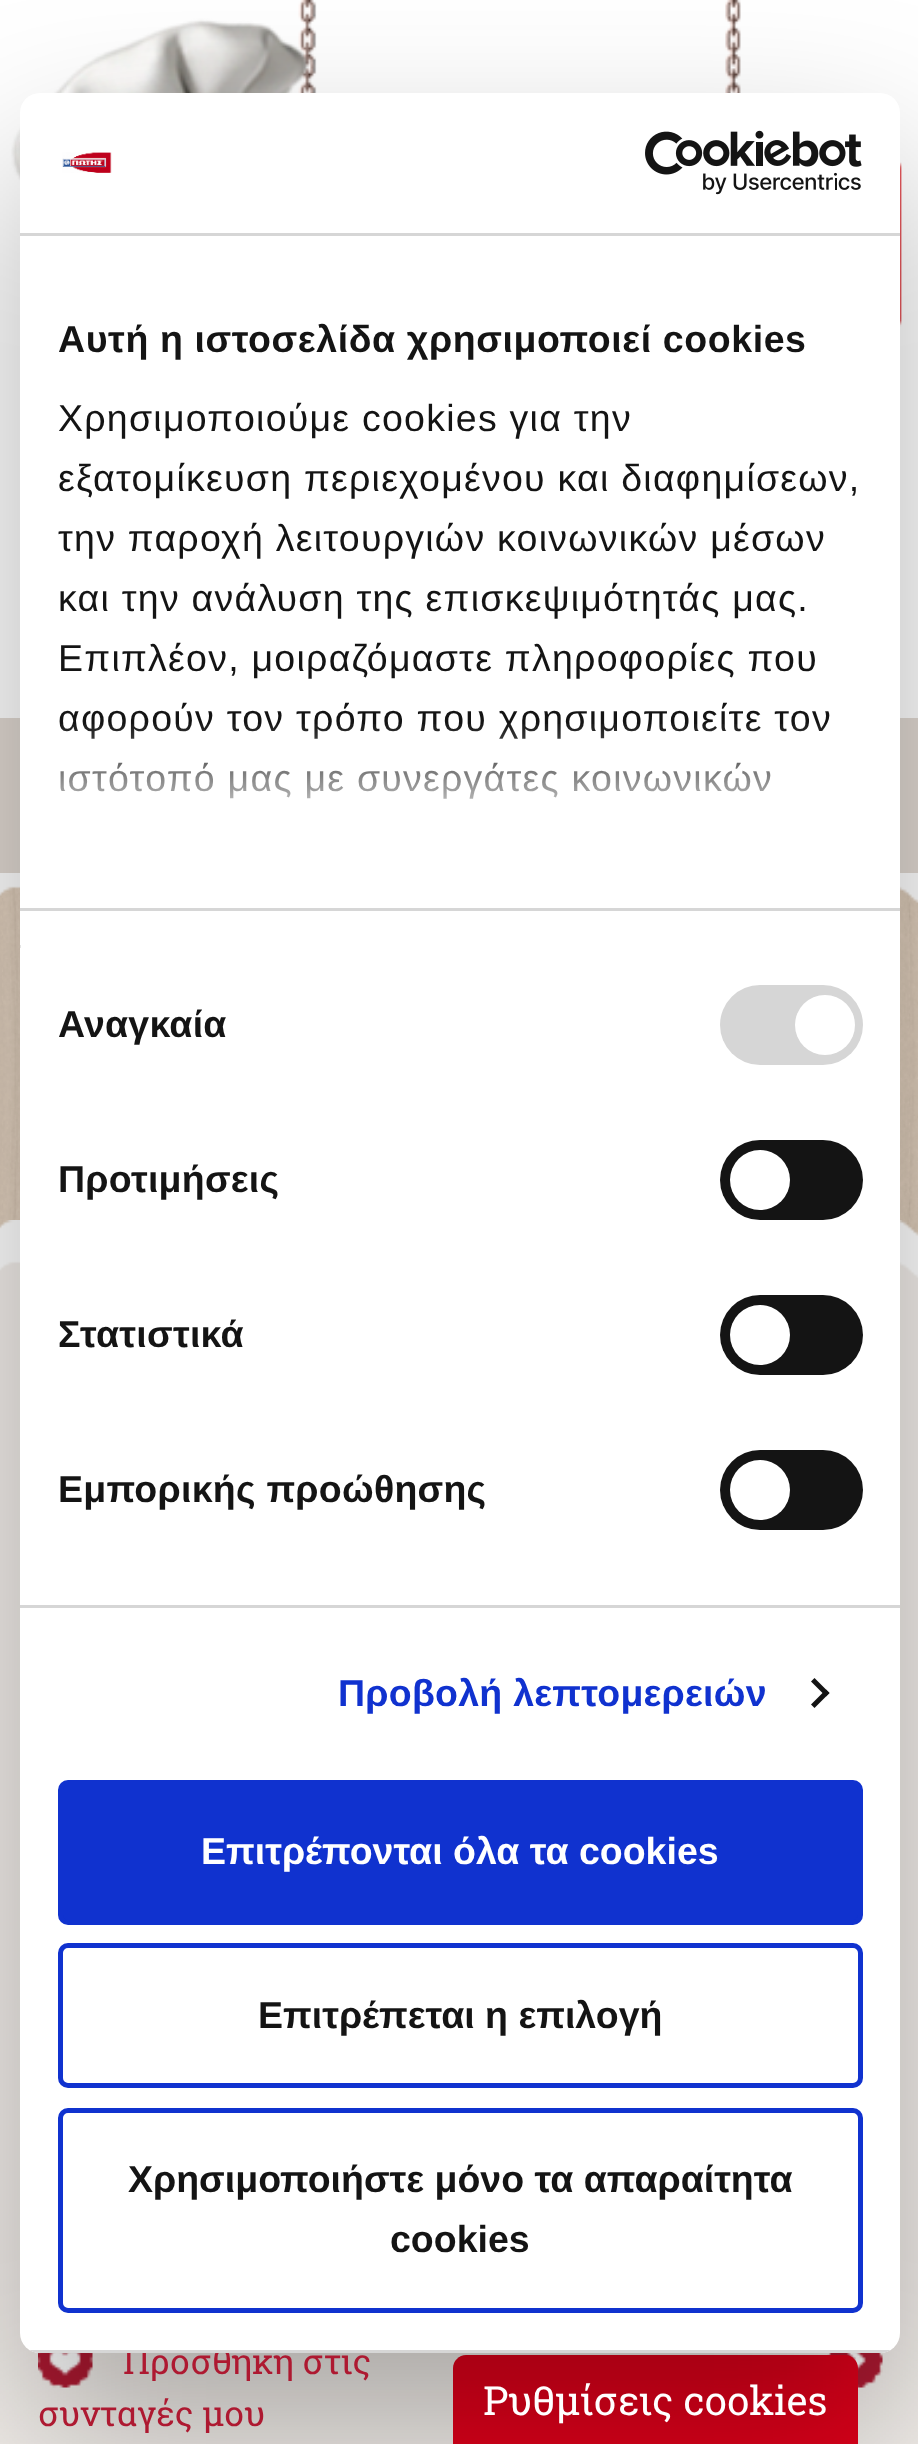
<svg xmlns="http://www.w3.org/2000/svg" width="918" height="2444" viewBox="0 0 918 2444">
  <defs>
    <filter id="blur1" x="-50%" y="-200%" width="200%" height="500%"><feGaussianBlur stdDeviation="85"/></filter>
    <linearGradient id="g1" gradientUnits="userSpaceOnUse" x1="444" y1="908" x2="444" y2="721"><stop offset="0" stop-color="#ffffff"/><stop offset="0.5" stop-color="#ffffff" stop-opacity="0.8"/><stop offset="1" stop-color="#ffffff" stop-opacity="0"/></linearGradient>
    <clipPath id="clip1"><rect x="20" y="93" width="880" height="2260" rx="20"/></clipPath>
  </defs>
  <rect width="100%" height="100%" fill="#f2eeea"/>
  <rect x="0" y="0" width="918" height="718" fill="#ffffff"/>
  <image x="11" y="0" width="891" height="327" href="img3.png"/>
  <rect x="0" y="718" width="918" height="155" fill="#e1d9d2"/>
  <image x="0" y="886" width="918" height="350" href="img5.png"/>
  <image x="0" y="873" width="918" height="30" href="img4.png"/>
  <image x="0" y="1220" width="918" height="58" href="img6.png"/>
  <image x="38" y="2352" width="55" height="36" href="img7.png"/>
  <image x="827" y="2352" width="56" height="36" href="img8.png"/>
  <path d="M466 2355H845C852 2355 858 2361 858 2368V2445H453V2368C453 2361 459 2355 466 2355Z" fill="#e2001a"/>
  <rect x="20" y="173" width="880" height="2260" rx="20" fill="#000000" fill-opacity="0.3" filter="url(#blur1)"/>
  <text x="123" y="2374" font-family="Roboto Slab" font-size="35" fill="#ae1931">Προσθήκη στις</text>
  <rect x="20" y="93" width="880" height="2260" rx="20" fill="#ffffff"/>
  <rect x="20" y="233" width="880" height="3" fill="#d6d6d6"/>
  <image x="62" y="152" width="50" height="21" href="img1.png"/>
  <image x="645" y="130" width="217" height="65" href="img2.png"/>
  <rect x="20" y="908" width="880" height="3" fill="#d6d6d6"/>
  <text x="58" y="352" font-family="Liberation Sans" font-size="37.5" font-weight="bold" letter-spacing="0.6" fill="#141414">Αυτή η ιστοσελίδα χρησιμοποιεί cookies</text>
  <text x="58" y="431" font-family="Liberation Sans" font-size="37.5" letter-spacing="1.25" fill="#141414">Χρησιμοποιούμε cookies για την</text>
  <text x="58" y="491" font-family="Liberation Sans" font-size="37.5" letter-spacing="1.25" fill="#141414">εξατομίκευση περιεχομένου και διαφημίσεων,</text>
  <text x="58" y="551" font-family="Liberation Sans" font-size="37.5" letter-spacing="1.25" fill="#141414">την παροχή λειτουργιών κοινωνικών μέσων</text>
  <text x="58" y="611" font-family="Liberation Sans" font-size="37.5" letter-spacing="1.25" fill="#141414">και την ανάλυση της επισκεψιμότητάς μας.</text>
  <text x="58" y="671" font-family="Liberation Sans" font-size="37.5" letter-spacing="1.25" fill="#141414">Επιπλέον, μοιραζόμαστε πληροφορίες που</text>
  <text x="58" y="731" font-family="Liberation Sans" font-size="37.5" letter-spacing="1.25" fill="#141414">αφορούν τον τρόπο που χρησιμοποιείτε τον</text>
  <text x="58" y="791" font-family="Liberation Sans" font-size="37.5" letter-spacing="1.25" fill="#141414">ιστότοπό μας με συνεργάτες κοινωνικών</text>
  <rect x="59" y="724" width="767" height="75" fill="url(#g1)"/>
  <rect x="20" y="1605" width="880" height="3" fill="#d6d6d6"/>
  <rect x="20" y="945" width="1" height="3" fill="#e5e5e5"/>
  <text x="58" y="1037" font-family="Liberation Sans" font-size="37.5" font-weight="bold" letter-spacing="0.25" fill="#141414">Αναγκαία</text>
  <rect x="720" y="985" width="143" height="80" rx="40" fill="#d6d6d6"/>
  <circle cx="825" cy="1025" r="30" fill="#ffffff"/>
  <text x="58" y="1192" font-family="Liberation Sans" font-size="37.5" font-weight="bold" letter-spacing="0.25" fill="#141414">Προτιμήσεις</text>
  <rect x="720" y="1140" width="143" height="80" rx="40" fill="#141414"/>
  <circle cx="760" cy="1180" r="30" fill="#ffffff"/>
  <text x="58" y="1347" font-family="Liberation Sans" font-size="37.5" font-weight="bold" letter-spacing="0.25" fill="#141414">Στατιστικά</text>
  <rect x="720" y="1295" width="143" height="80" rx="40" fill="#141414"/>
  <circle cx="760" cy="1335" r="30" fill="#ffffff"/>
  <text x="58" y="1502" font-family="Liberation Sans" font-size="37.5" font-weight="bold" letter-spacing="0.25" fill="#141414">Εμπορικής προώθησης</text>
  <rect x="720" y="1450" width="143" height="80" rx="40" fill="#141414"/>
  <circle cx="760" cy="1490" r="30" fill="#ffffff"/>
  <text x="338" y="1706" font-family="Liberation Sans" font-size="37.5" font-weight="bold" letter-spacing="0.25" fill="#1032cf">Προβολή λεπτομερειών</text>
  <path d="M814.5 1678L829.5 1693L826 1696.5L811 1681.5Z" fill="#141414"/>
  <path d="M826 1689.5L829.5 1693L814.5 1708L811 1704.5Z" fill="#141414"/>
  <g clip-path="url(#clip1)">
    <rect x="29" y="2350" width="862" height="3" fill="#d6d6d6"/>
  </g>
  <rect x="60.5" y="1782.5" width="800" height="140" rx="7.5" fill="#1032cf" stroke="#1032cf" stroke-width="5"/>
  <text x="201" y="1864" font-family="Liberation Sans" font-size="37.5" font-weight="bold" fill="#ffffff">Επιτρέπονται όλα τα cookies</text>
  <rect x="60.5" y="1945.5" width="800" height="140" rx="7.5" fill="none" stroke="#1032cf" stroke-width="5"/>
  <text x="258" y="2028" font-family="Liberation Sans" font-size="37.5" font-weight="bold" fill="#141414">Επιτρέπεται η επιλογή</text>
  <rect x="60.5" y="2110.5" width="800" height="200" rx="7.5" fill="none" stroke="#1032cf" stroke-width="5"/>
  <text x="128" y="2192" font-family="Liberation Sans" font-size="37.5" font-weight="bold" fill="#141414">Χρησιμοποιήστε μόνο τα απαραίτητα</text>
  <text x="390" y="2252" font-family="Liberation Sans" font-size="37.5" font-weight="bold" fill="#141414">cookies</text>
  <text x="38" y="2426" font-family="Roboto Slab" font-size="35" fill="#ae1931">συνταγές μου</text>
  <text x="483" y="2415" font-family="Roboto Slab" font-size="40" fill="#ffffff">Ρυθμίσεις cookies</text>
</svg>
